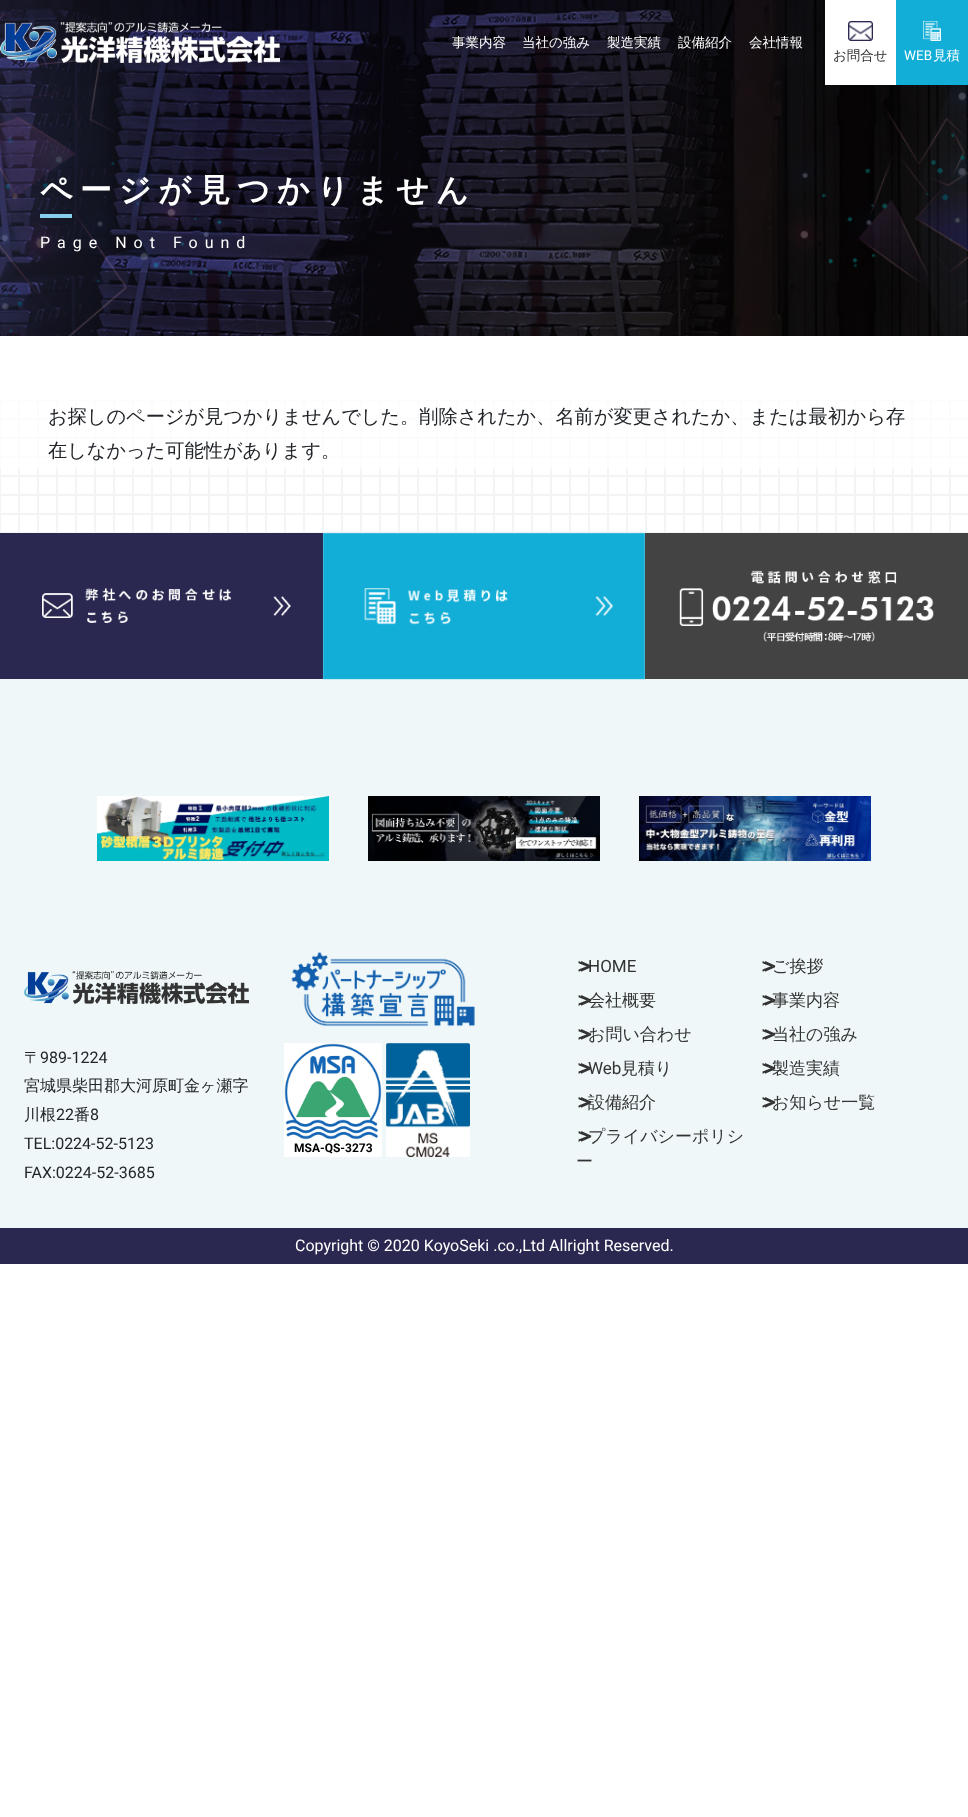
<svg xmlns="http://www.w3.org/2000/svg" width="968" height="1817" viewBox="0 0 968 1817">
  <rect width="100%" height="100%" fill="#ffffff"/>
  <image x="0" y="0" width="968" height="336" href="img4.png"/>
  <image x="0" y="22" width="280" height="41" href="img1.png"/>
  <text x="452" y="47" font-family="WenQuanYi Zen Hei" font-size="13.5" font-weight="500" fill="#ffffff">事業内容</text>
  <text x="522" y="47" font-family="WenQuanYi Zen Hei" font-size="13.5" font-weight="500" fill="#ffffff">当社の強み</text>
  <text x="607" y="47" font-family="WenQuanYi Zen Hei" font-size="13.5" font-weight="500" fill="#ffffff">製造実績</text>
  <text x="678" y="47" font-family="WenQuanYi Zen Hei" font-size="13.5" font-weight="500" fill="#ffffff">設備紹介</text>
  <text x="749" y="47" font-family="WenQuanYi Zen Hei" font-size="13.5" font-weight="500" fill="#ffffff">会社情報</text>
  <rect x="825" y="0" width="71" height="85" fill="#ffffff"/>
  <image x="848" y="21" width="25" height="20" href="img2.png"/>
  <text x="833" y="60" font-family="WenQuanYi Zen Hei" font-size="13.5" font-weight="500" fill="#333333">お問合せ</text>
  <rect x="896" y="0" width="72" height="85" fill="#12aed7"/>
  <image x="923" y="21" width="18" height="20" href="img3.png"/>
  <text x="904" y="60" font-family="Roboto" font-size="13.5" fill="#ffffff">WEB</text>
  <text x="933" y="60" font-family="WenQuanYi Zen Hei" font-size="13.5" font-weight="500" fill="#ffffff">見積</text>
  <text x="40" y="201" font-family="WenQuanYi Zen Hei" font-size="32" font-weight="bold" letter-spacing="7" fill="#ffffff">ページが見つかりません</text>
  <rect x="40" y="214" width="32" height="4" fill="#87ceeb"/>
  <text x="40" y="248" font-family="Roboto" font-size="16" letter-spacing="7" fill="#ffffff">Page Not Found</text>
  <image x="0" y="400" width="968" height="279" href="img5.png"/>
  <rect x="0" y="400" width="968" height="69" fill="#ffffff" fill-opacity="0.7"/>
  <text x="48" y="423" font-family="WenQuanYi Zen Hei" font-size="19.2" font-weight="500" fill="#212529">お探しのページが見つかりませんでした。削除されたか、名前が変更されたか、または最初から存</text>
  <text x="48" y="457" font-family="WenQuanYi Zen Hei" font-size="19.2" font-weight="500" fill="#212529">在しなかった可能性があります。</text>
  <image x="0" y="533" width="323" height="146" href="img6.png"/>
  <rect x="0" y="679" width="968" height="549" fill="#eff7f9"/>
  <image x="322" y="532" width="324" height="148" href="img7.png"/>
  <image x="645" y="533" width="323" height="146" href="img8.png"/>
  <image x="97" y="796" width="232" height="65" href="img9.png"/>
  <image x="368" y="796" width="232" height="65" href="img10.png"/>
  <image x="639" y="796" width="232" height="65" href="img11.png"/>
  <image x="24" y="971" width="225" height="33" href="img12.png"/>
  <text x="24" y="1063" font-family="WenQuanYi Zen Hei" font-size="16" font-weight="500" fill="#212529">〒</text>
  <text x="40" y="1063" font-family="Roboto" font-size="16" fill="#212529">989-1224</text>
  <text x="24" y="1091" font-family="WenQuanYi Zen Hei" font-size="16" font-weight="500" fill="#212529">宮城県柴田郡大河原町金ヶ瀬字</text>
  <text x="24" y="1120" font-family="WenQuanYi Zen Hei" font-size="16" font-weight="500" fill="#212529">川根</text>
  <text x="56" y="1120" font-family="Roboto" font-size="16" fill="#212529">22</text>
  <text x="74" y="1120" font-family="WenQuanYi Zen Hei" font-size="16" font-weight="500" fill="#212529">番</text>
  <text x="90" y="1120" font-family="Roboto" font-size="16" fill="#212529">8</text>
  <text x="24" y="1149" font-family="Roboto" font-size="16" fill="#212529">TEL:0224-52-5123</text>
  <text x="24" y="1178" font-family="Roboto" font-size="16" fill="#212529">FAX:0224-52-3685</text>
  <image x="291" y="952" width="184" height="75" href="img13.png"/>
  <image x="284" y="1043" width="98" height="97" href="img14.png"/>
  <rect x="284" y="1140" width="98" height="17" fill="#ffffff"/>
  <text x="294" y="1152" font-family="Roboto" font-size="12" font-weight="bold" fill="#000000">MSA-QS-3273</text>
  <image x="386" y="1043" width="84" height="114" href="img15.png"/>
  <text x="588" y="972" font-family="Roboto" font-size="17" fill="#333333">HOME</text>
  <text x="577" y="974" font-family="Roboto" font-size="24" letter-spacing="-10" fill="#333333">&gt;&gt;</text>
  <text x="772" y="972" font-family="WenQuanYi Zen Hei" font-size="17" font-weight="500" fill="#333333">ご挨拶</text>
  <text x="761" y="974" font-family="Roboto" font-size="24" letter-spacing="-10" fill="#333333">&gt;&gt;</text>
  <text x="588" y="1006" font-family="WenQuanYi Zen Hei" font-size="17" font-weight="500" fill="#333333">会社概要</text>
  <text x="577" y="1008" font-family="Roboto" font-size="24" letter-spacing="-10" fill="#333333">&gt;&gt;</text>
  <text x="772" y="1006" font-family="WenQuanYi Zen Hei" font-size="17" font-weight="500" fill="#333333">事業内容</text>
  <text x="761" y="1008" font-family="Roboto" font-size="24" letter-spacing="-10" fill="#333333">&gt;&gt;</text>
  <text x="588" y="1040" font-family="WenQuanYi Zen Hei" font-size="17" font-weight="500" fill="#333333">お問い合わせ</text>
  <text x="577" y="1042" font-family="Roboto" font-size="24" letter-spacing="-10" fill="#333333">&gt;&gt;</text>
  <text x="772" y="1040" font-family="WenQuanYi Zen Hei" font-size="17" font-weight="500" fill="#333333">当社の強み</text>
  <text x="761" y="1042" font-family="Roboto" font-size="24" letter-spacing="-10" fill="#333333">&gt;&gt;</text>
  <text x="588" y="1074" font-family="Roboto" font-size="17" fill="#333333">Web</text>
  <text x="577" y="1076" font-family="Roboto" font-size="24" letter-spacing="-10" fill="#333333">&gt;&gt;</text>
  <text x="621" y="1074" font-family="WenQuanYi Zen Hei" font-size="17" font-weight="500" fill="#333333">見積り</text>
  <text x="772" y="1074" font-family="WenQuanYi Zen Hei" font-size="17" font-weight="500" fill="#333333">製造実績</text>
  <text x="761" y="1076" font-family="Roboto" font-size="24" letter-spacing="-10" fill="#333333">&gt;&gt;</text>
  <text x="588" y="1108" font-family="WenQuanYi Zen Hei" font-size="17" font-weight="500" fill="#333333">設備紹介</text>
  <text x="577" y="1110" font-family="Roboto" font-size="24" letter-spacing="-10" fill="#333333">&gt;&gt;</text>
  <text x="772" y="1108" font-family="WenQuanYi Zen Hei" font-size="17" font-weight="500" fill="#333333">お知らせ一覧</text>
  <text x="761" y="1110" font-family="Roboto" font-size="24" letter-spacing="-10" fill="#333333">&gt;&gt;</text>
  <text x="588" y="1142" font-family="WenQuanYi Zen Hei" font-size="17" font-weight="500" fill="#333333">プライバシーポリシ</text>
  <text x="577" y="1144" font-family="Roboto" font-size="24" letter-spacing="-10" fill="#333333">&gt;&gt;</text>
  <text x="576" y="1167" font-family="WenQuanYi Zen Hei" font-size="17" font-weight="500" fill="#333333">ー</text>
  <rect x="0" y="1228" width="968" height="36" fill="#2a2850"/>
  <text x="295" y="1251" font-family="Roboto" font-size="16" fill="#ffffff">Copyright © 2020 KoyoSeki .co.,Ltd Allright Reserved.</text>
</svg>
